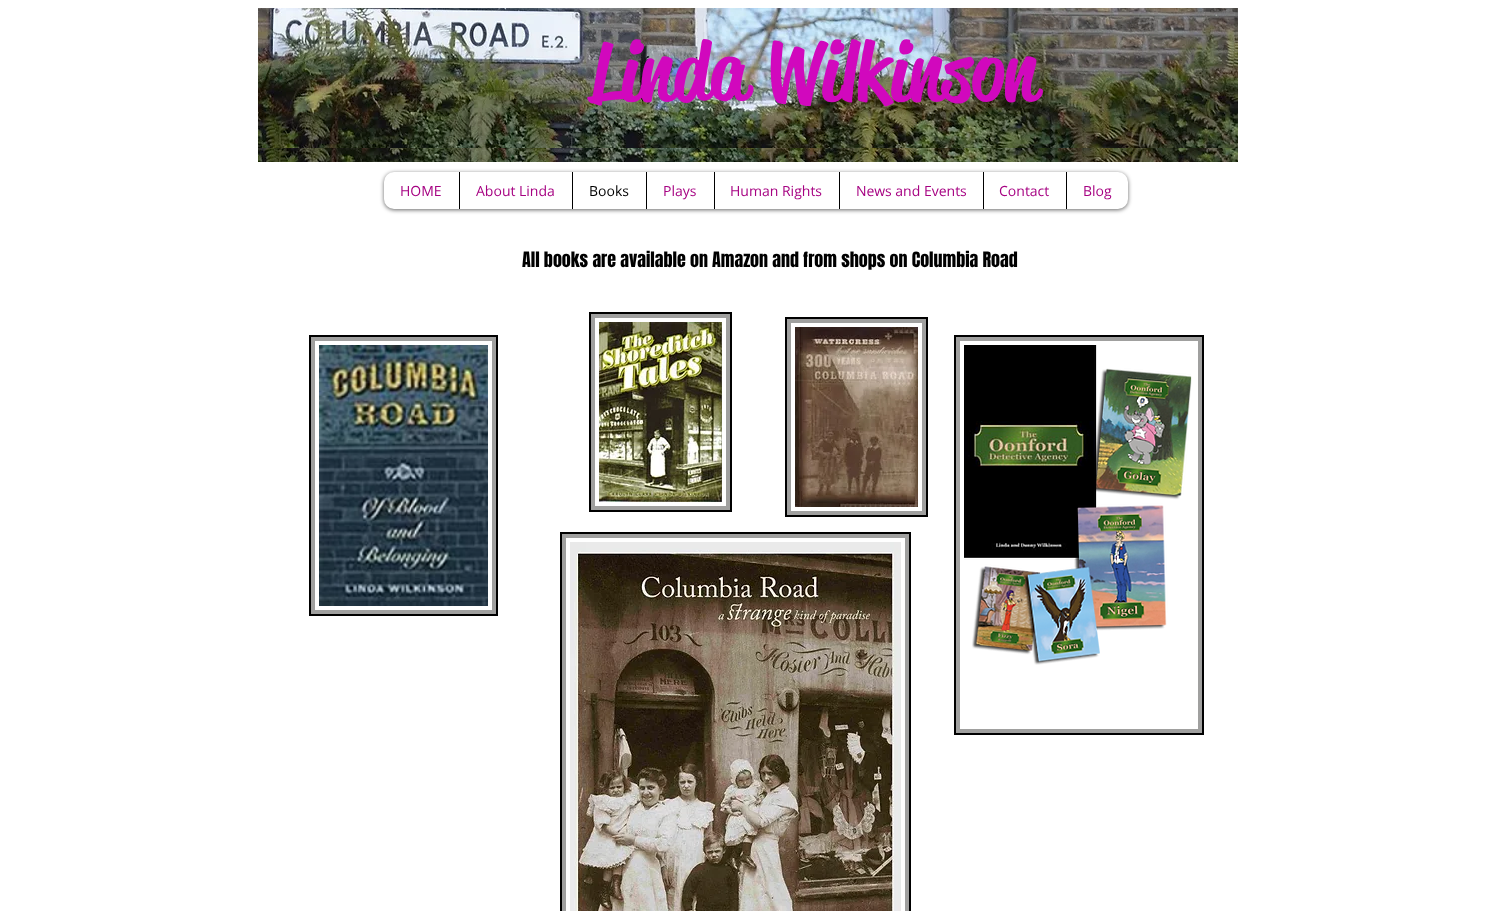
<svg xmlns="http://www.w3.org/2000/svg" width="1495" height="911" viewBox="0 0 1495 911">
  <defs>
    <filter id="blur1" x="-50%" y="-200%" width="200%" height="500%"><feGaussianBlur stdDeviation="2"/></filter>
  </defs>
  <rect width="100%" height="100%" fill="#ffffff"/>
  <image x="258" y="8" width="980" height="140" href="img1.png"/>
  <text x="589" y="99" font-family="'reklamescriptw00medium'" font-size="80" font-weight="500" fill="#d108bd">Linda Wilkinson</text>
  <image x="258" y="148" width="980" height="14" href="img2.png"/>
  <rect x="384" y="173" width="744" height="37" rx="10" fill="#000000" fill-opacity="0.6" filter="url(#blur1)"/>
  <rect x="384" y="172" width="744" height="37" rx="10" fill="#ffffff"/>
  <text x="400" y="196" font-family="Open Sans" font-size="14" fill="#a60282">HOME</text>
  <rect x="459" y="172" width="1" height="37" fill="#000000"/>
  <text x="476" y="196" font-family="Open Sans" font-size="14" fill="#a60282">About Linda</text>
  <rect x="572" y="172" width="1" height="37" fill="#000000"/>
  <text x="589" y="196" font-family="Open Sans" font-size="14" fill="#000000">Books</text>
  <rect x="646" y="172" width="1" height="37" fill="#000000"/>
  <text x="663" y="196" font-family="Open Sans" font-size="14" fill="#a60282">Plays</text>
  <rect x="714" y="172" width="1" height="37" fill="#000000"/>
  <text x="730" y="196" font-family="Open Sans" font-size="14" fill="#a60282">Human Rights</text>
  <rect x="839" y="172" width="1" height="37" fill="#000000"/>
  <text x="856" y="196" font-family="Open Sans" font-size="14" fill="#a60282">News and Events</text>
  <rect x="983" y="172" width="1" height="37" fill="#000000"/>
  <text x="999" y="196" font-family="Open Sans" font-size="14" fill="#a60282">Contact</text>
  <rect x="1066" y="172" width="1" height="37" fill="#000000"/>
  <text x="1083" y="196" font-family="Open Sans" font-size="14" fill="#a60282">Blog</text>
  <text x="522" y="267" font-family="Anton" font-size="18" fill="#000000">All books are available on Amazon and from shops on Columbia Road</text>
  <rect x="310" y="336" width="187" height="279" fill="none" stroke="#000000" stroke-width="2"/>
  <image x="319" y="345" width="169" height="261" href="img3.png"/>
  <rect x="313" y="339" width="181" height="273" fill="none" stroke="#a0a09f" stroke-width="4"/>
  <rect x="590" y="313" width="141" height="198" fill="none" stroke="#000000" stroke-width="2"/>
  <image x="599" y="322" width="123" height="180" href="img4.png"/>
  <rect x="593" y="316" width="135" height="192" fill="none" stroke="#a0a09f" stroke-width="4"/>
  <rect x="786" y="318" width="141" height="198" fill="none" stroke="#000000" stroke-width="2"/>
  <image x="795" y="327" width="123" height="180" href="img5.png"/>
  <rect x="789" y="321" width="135" height="192" fill="none" stroke="#a0a09f" stroke-width="4"/>
  <rect x="955" y="336" width="248" height="398" fill="none" stroke="#000000" stroke-width="2"/>
  <image x="964" y="345" width="228" height="320" href="img6.png"/>
  <rect x="958" y="339" width="242" height="392" fill="none" stroke="#a0a09f" stroke-width="4"/>
  <rect x="561" y="533" width="349" height="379" fill="none" stroke="#000000" stroke-width="2"/>
  <image x="570" y="542" width="331" height="369" href="img7.png"/>
  <rect x="564" y="536" width="343" height="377" fill="none" stroke="#a0a09f" stroke-width="4"/>
</svg>
